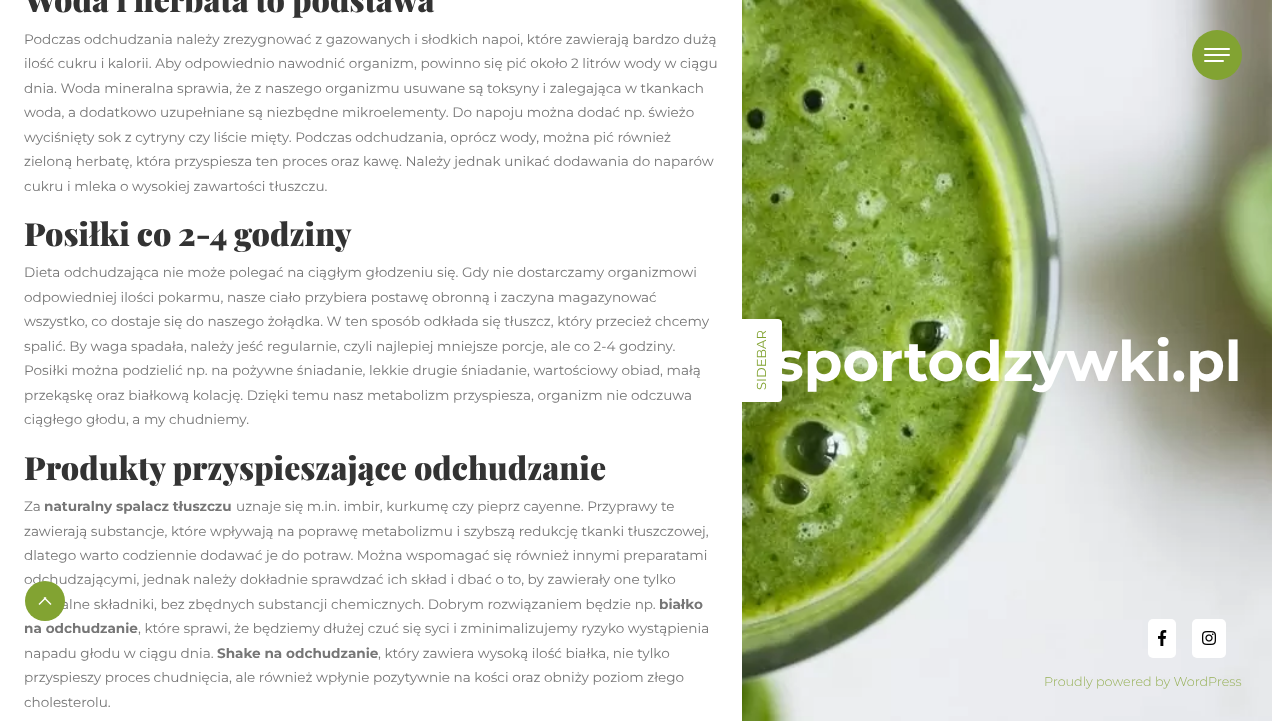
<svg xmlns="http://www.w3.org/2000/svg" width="1272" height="721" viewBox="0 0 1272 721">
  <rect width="100%" height="100%" fill="#ffffff"/>
  <text x="24" y="12" font-family="Playfair Display" font-size="32" font-weight="900" fill="#333333">Woda i herbata to podstawa</text>
  <text x="24" y="44" font-family="Montserrat" font-size="13.6" fill="#767676">Podczas odchudzania należy zrezygnować z gazowanych i słodkich napoi, które zawierają bardzo dużą</text>
  <text x="24" y="68" font-family="Montserrat" font-size="13.6" fill="#767676">ilość cukru i kalorii. Aby odpowiednio nawodnić organizm, powinno się pić około 2 litrów wody w ciągu</text>
  <text x="24" y="93" font-family="Montserrat" font-size="13.6" fill="#767676">dnia. Woda mineralna sprawia, że z naszego organizmu usuwane są toksyny i zalegająca w tkankach</text>
  <text x="24" y="117" font-family="Montserrat" font-size="13.6" fill="#767676">woda, a dodatkowo uzupełniane są niezbędne mikroelementy. Do napoju można dodać np. świeżo</text>
  <text x="24" y="142" font-family="Montserrat" font-size="13.6" fill="#767676">wyciśnięty sok z cytryny czy liście mięty. Podczas odchudzania, oprócz wody, można pić również</text>
  <text x="24" y="166" font-family="Montserrat" font-size="13.6" fill="#767676">zieloną herbatę, która przyspiesza ten proces oraz kawę. Należy jednak unikać dodawania do naparów</text>
  <text x="24" y="191" font-family="Montserrat" font-size="13.6" fill="#767676">cukru i mleka o wysokiej zawartości tłuszczu.</text>
  <text x="24" y="246" font-family="Playfair Display" font-size="32" font-weight="900" fill="#333333">Posiłki co 2-4 godziny</text>
  <text x="24" y="277" font-family="Montserrat" font-size="13.6" fill="#767676">Dieta odchudzająca nie może polegać na ciągłym głodzeniu się. Gdy nie dostarczamy organizmowi</text>
  <text x="24" y="302" font-family="Montserrat" font-size="13.6" fill="#767676">odpowiedniej ilości pokarmu, nasze ciało przybiera postawę obronną i zaczyna magazynować</text>
  <text x="24" y="326" font-family="Montserrat" font-size="13.6" fill="#767676">wszystko, co dostaje się do naszego żołądka. W ten sposób odkłada się tłuszcz, który przecież chcemy</text>
  <text x="24" y="351" font-family="Montserrat" font-size="13.6" fill="#767676">spalić. By waga spadała, należy jeść regularnie, czyli najlepiej mniejsze porcje, ale co 2-4 godziny.</text>
  <text x="24" y="375" font-family="Montserrat" font-size="13.6" fill="#767676">Posiłki można podzielić np. na pożywne śniadanie, lekkie drugie śniadanie, wartościowy obiad, małą</text>
  <text x="24" y="400" font-family="Montserrat" font-size="13.6" fill="#767676">przekąskę oraz białkową kolację. Dzięki temu nasz metabolizm przyspiesza, organizm nie odczuwa</text>
  <text x="24" y="424" font-family="Montserrat" font-size="13.6" fill="#767676">ciągłego głodu, a my chudniemy.</text>
  <text x="24" y="480" font-family="Playfair Display" font-size="32" font-weight="900" fill="#333333">Produkty przyspieszające odchudzanie</text>
  <text x="24" y="511" font-family="Montserrat" font-size="13.6" fill="#767676">Za</text>
  <text x="44" y="511" font-family="Montserrat" font-size="13.6" font-weight="bold" fill="#767676">naturalny spalacz tłuszczu</text>
  <text x="236" y="511" font-family="Montserrat" font-size="13.6" fill="#767676">uznaje się m.in. imbir, kurkumę czy pieprz cayenne. Przyprawy te</text>
  <text x="24" y="536" font-family="Montserrat" font-size="13.6" fill="#767676">zawierają substancje, które wpływają na poprawę metabolizmu i szybszą redukcję tkanki tłuszczowej,</text>
  <text x="24" y="560" font-family="Montserrat" font-size="13.6" fill="#767676">dlatego warto codziennie dodawać je do potraw. Można wspomagać się również innymi preparatami</text>
  <text x="24" y="584" font-family="Montserrat" font-size="13.6" fill="#767676">odchudzającymi, jednak należy dokładnie sprawdzać ich skład i dbać o to, by zawierały one tylko</text>
  <text x="61" y="609" font-family="Montserrat" font-size="13.6" fill="#767676">alne składniki, bez zbędnych substancji chemicznych. Dobrym rozwiązaniem będzie np.</text>
  <text x="659" y="609" font-family="Montserrat" font-size="13.6" font-weight="bold" fill="#767676">białko</text>
  <text x="24" y="633" font-family="Montserrat" font-size="13.6" font-weight="bold" fill="#767676">na odchudzanie</text>
  <text x="138" y="633" font-family="Montserrat" font-size="13.6" fill="#767676">, które sprawi, że będziemy dłużej czuć się syci i zminimalizujemy ryzyko wystąpienia</text>
  <text x="24" y="658" font-family="Montserrat" font-size="13.6" fill="#767676">napadu głodu w ciągu dnia.</text>
  <text x="217" y="658" font-family="Montserrat" font-size="13.6" font-weight="bold" fill="#767676">Shake na odchudzanie</text>
  <text x="378" y="658" font-family="Montserrat" font-size="13.6" fill="#767676">, który zawiera wysoką ilość białka, nie tylko</text>
  <text x="24" y="682" font-family="Montserrat" font-size="13.6" fill="#767676">przyspieszy proces chudnięcia, ale również wpłynie pozytywnie na kości oraz obniży poziom złego</text>
  <text x="24" y="707" font-family="Montserrat" font-size="13.6" fill="#767676">cholesterolu.</text>
  <image x="742" y="0" width="530" height="721" href="img1.png"/>
  <path d="M742 402V319H778C780 319 782 320 782 323V398C782 401 780 402 778 402Z" fill="#ffffff"/>
  <text x="766" y="390" transform="rotate(-90 766 390)" font-family="Montserrat" font-size="13" fill="#82a332">SIDEBAR</text>
  <text x="774" y="381" font-family="Montserrat" font-size="56" font-weight="bold" fill="#ffffff">sportodzywki.pl</text>
  <rect x="1148" y="619" width="28" height="39" rx="5" fill="#ffffff"/>
  <image x="1158" y="630" width="9" height="16" href="img2.png"/>
  <rect x="1192" y="619" width="34" height="39" rx="5" fill="#ffffff"/>
  <image x="1202" y="631" width="14" height="14" href="img3.png"/>
  <text x="1044" y="686" font-family="Montserrat" font-size="12.75" font-weight="300" fill="#97b158">Proudly powered by WordPress</text>
  <circle cx="1217" cy="55" r="25" fill="#82a332"/>
  <rect x="1204" y="48" width="26" height="2" rx="1" fill="#ffffff"/>
  <rect x="1204" y="54" width="26" height="2" rx="1" fill="#ffffff"/>
  <rect x="1204" y="60" width="20" height="2" rx="1" fill="#ffffff"/>
  <circle cx="45" cy="601" r="20" fill="#82a332"/>
  <path d="M38.5 604L45.5 597L46.5 598L39.5 605Z" fill="#ffffff"/>
  <path d="M44.5 597L51.5 604L50.5 605L43.5 598Z" fill="#ffffff"/>
</svg>
